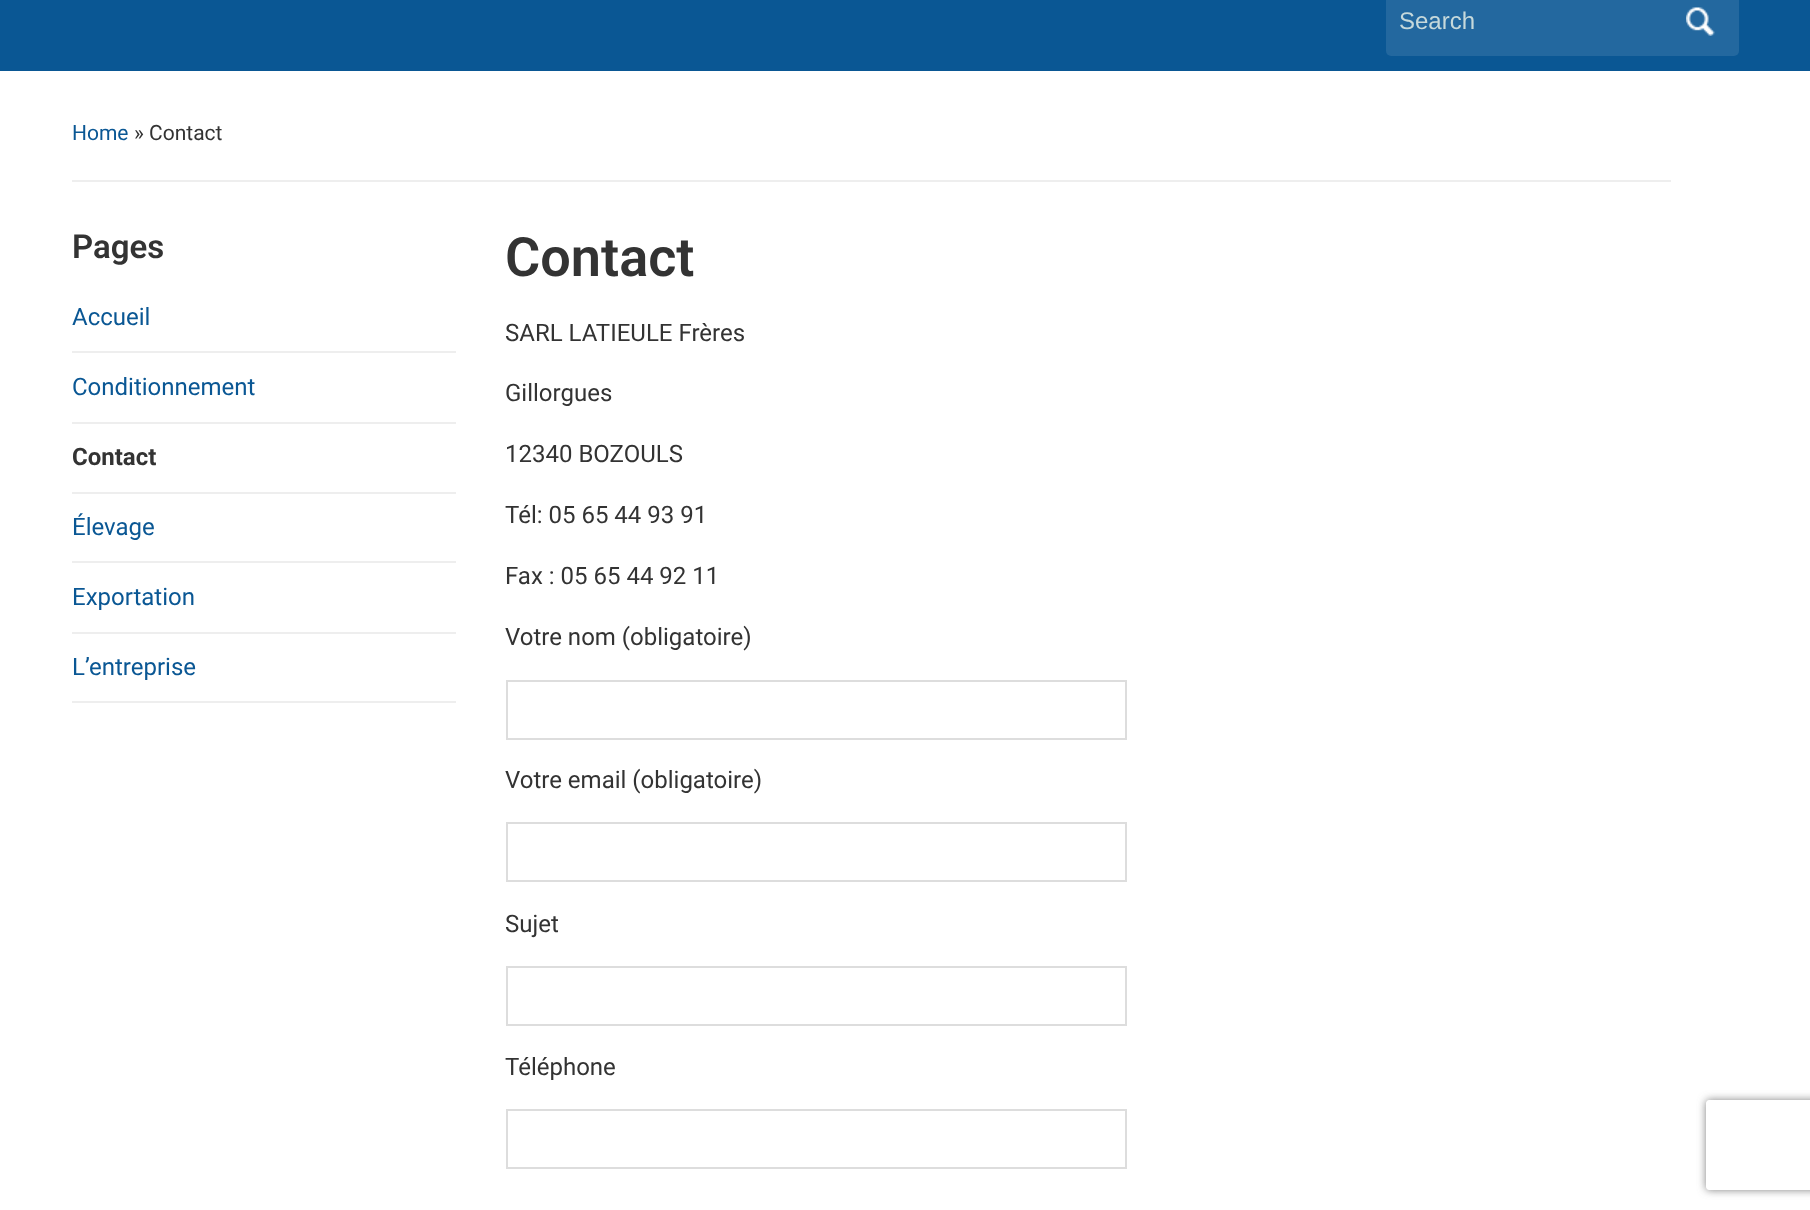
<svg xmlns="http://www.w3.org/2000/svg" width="1810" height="1210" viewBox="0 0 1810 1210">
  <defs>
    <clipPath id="clip1"><path d="M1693 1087H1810V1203H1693ZM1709 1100H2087C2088.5 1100 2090 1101.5 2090 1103V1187C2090 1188.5 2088.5 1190 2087 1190H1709C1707.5 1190 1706 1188.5 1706 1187V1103C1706 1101.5 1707.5 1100 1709 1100Z" clip-rule="evenodd"/></clipPath>
    <filter id="blur1" x="-50%" y="-200%" width="200%" height="500%"><feGaussianBlur stdDeviation="4"/></filter>
  </defs>
  <rect width="100%" height="100%" fill="#ffffff"/>
  <rect x="0" y="0" width="1810" height="71" fill="#0a5794"/>
  <rect x="1386" y="-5" width="353" height="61" rx="5" fill="#23689f"/>
  <text x="1399" y="29" font-family="Liberation Sans" font-size="24" fill="#c6d9db">Search</text>
  <image x="1686" y="7" width="29" height="29" href="img1.png"/>
  <rect x="72" y="180" width="1599" height="2" fill="#eeeeee"/>
  <text x="72" y="140" font-family="Roboto" font-size="21" fill="#0a5794">Home</text>
  <text x="134" y="140" font-family="Roboto" font-size="21" fill="#333333">» Contact</text>
  <text x="72" y="258" font-family="Roboto" font-size="33" font-weight="600" fill="#333333">Pages</text>
  <rect x="72" y="351" width="384" height="2" fill="#eeeeee"/>
  <text x="72" y="325" font-family="Roboto" font-size="24" fill="#0a5794">Accueil</text>
  <rect x="72" y="422" width="384" height="2" fill="#eeeeee"/>
  <text x="72" y="395" font-family="Roboto" font-size="24" fill="#0a5794">Conditionnement</text>
  <rect x="72" y="492" width="384" height="2" fill="#eeeeee"/>
  <text x="72" y="465" font-family="Roboto" font-size="24" font-weight="bold" fill="#333333">Contact</text>
  <rect x="72" y="561" width="384" height="2" fill="#eeeeee"/>
  <text x="72" y="535" font-family="Roboto" font-size="24" fill="#0a5794">Élevage</text>
  <rect x="72" y="632" width="384" height="2" fill="#eeeeee"/>
  <text x="72" y="605" font-family="Roboto" font-size="24" fill="#0a5794">Exportation</text>
  <rect x="72" y="701" width="384" height="2" fill="#eeeeee"/>
  <text x="72" y="675" font-family="Roboto" font-size="24" fill="#0a5794">L’entreprise</text>
  <text x="505" y="276" font-family="Roboto" font-size="54" font-weight="600" fill="#333333">Contact</text>
  <text x="505" y="341" font-family="Roboto" font-size="24" fill="#333333">SARL LATIEULE Frères</text>
  <text x="505" y="401" font-family="Roboto" font-size="24" fill="#333333">Gillorgues</text>
  <text x="505" y="462" font-family="Roboto" font-size="24" fill="#333333">12340 BOZOULS</text>
  <text x="505" y="523" font-family="Roboto" font-size="24" fill="#333333">Tél: 05 65 44 93 91</text>
  <text x="505" y="584" font-family="Roboto" font-size="24" fill="#333333">Fax : 05 65 44 92 11</text>
  <text x="505" y="645" font-family="Roboto" font-size="24" fill="#333333">Votre nom (obligatoire)</text>
  <rect x="507" y="681" width="619" height="58" fill="none" stroke="#dddddd" stroke-width="2"/>
  <text x="505" y="788" font-family="Roboto" font-size="24" fill="#333333">Votre email (obligatoire)</text>
  <rect x="507" y="823" width="619" height="58" fill="none" stroke="#dddddd" stroke-width="2"/>
  <text x="505" y="932" font-family="Roboto" font-size="24" fill="#333333">Sujet</text>
  <rect x="507" y="967" width="619" height="58" fill="none" stroke="#dddddd" stroke-width="2"/>
  <text x="505" y="1075" font-family="Roboto" font-size="24" fill="#333333">Téléphone</text>
  <rect x="507" y="1110" width="619" height="58" fill="none" stroke="#dddddd" stroke-width="2"/>
  <g clip-path="url(#clip1)">
    <rect x="1706" y="1100" width="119" height="90" rx="3" fill="#808080" filter="url(#blur1)"/>
  </g>
</svg>
